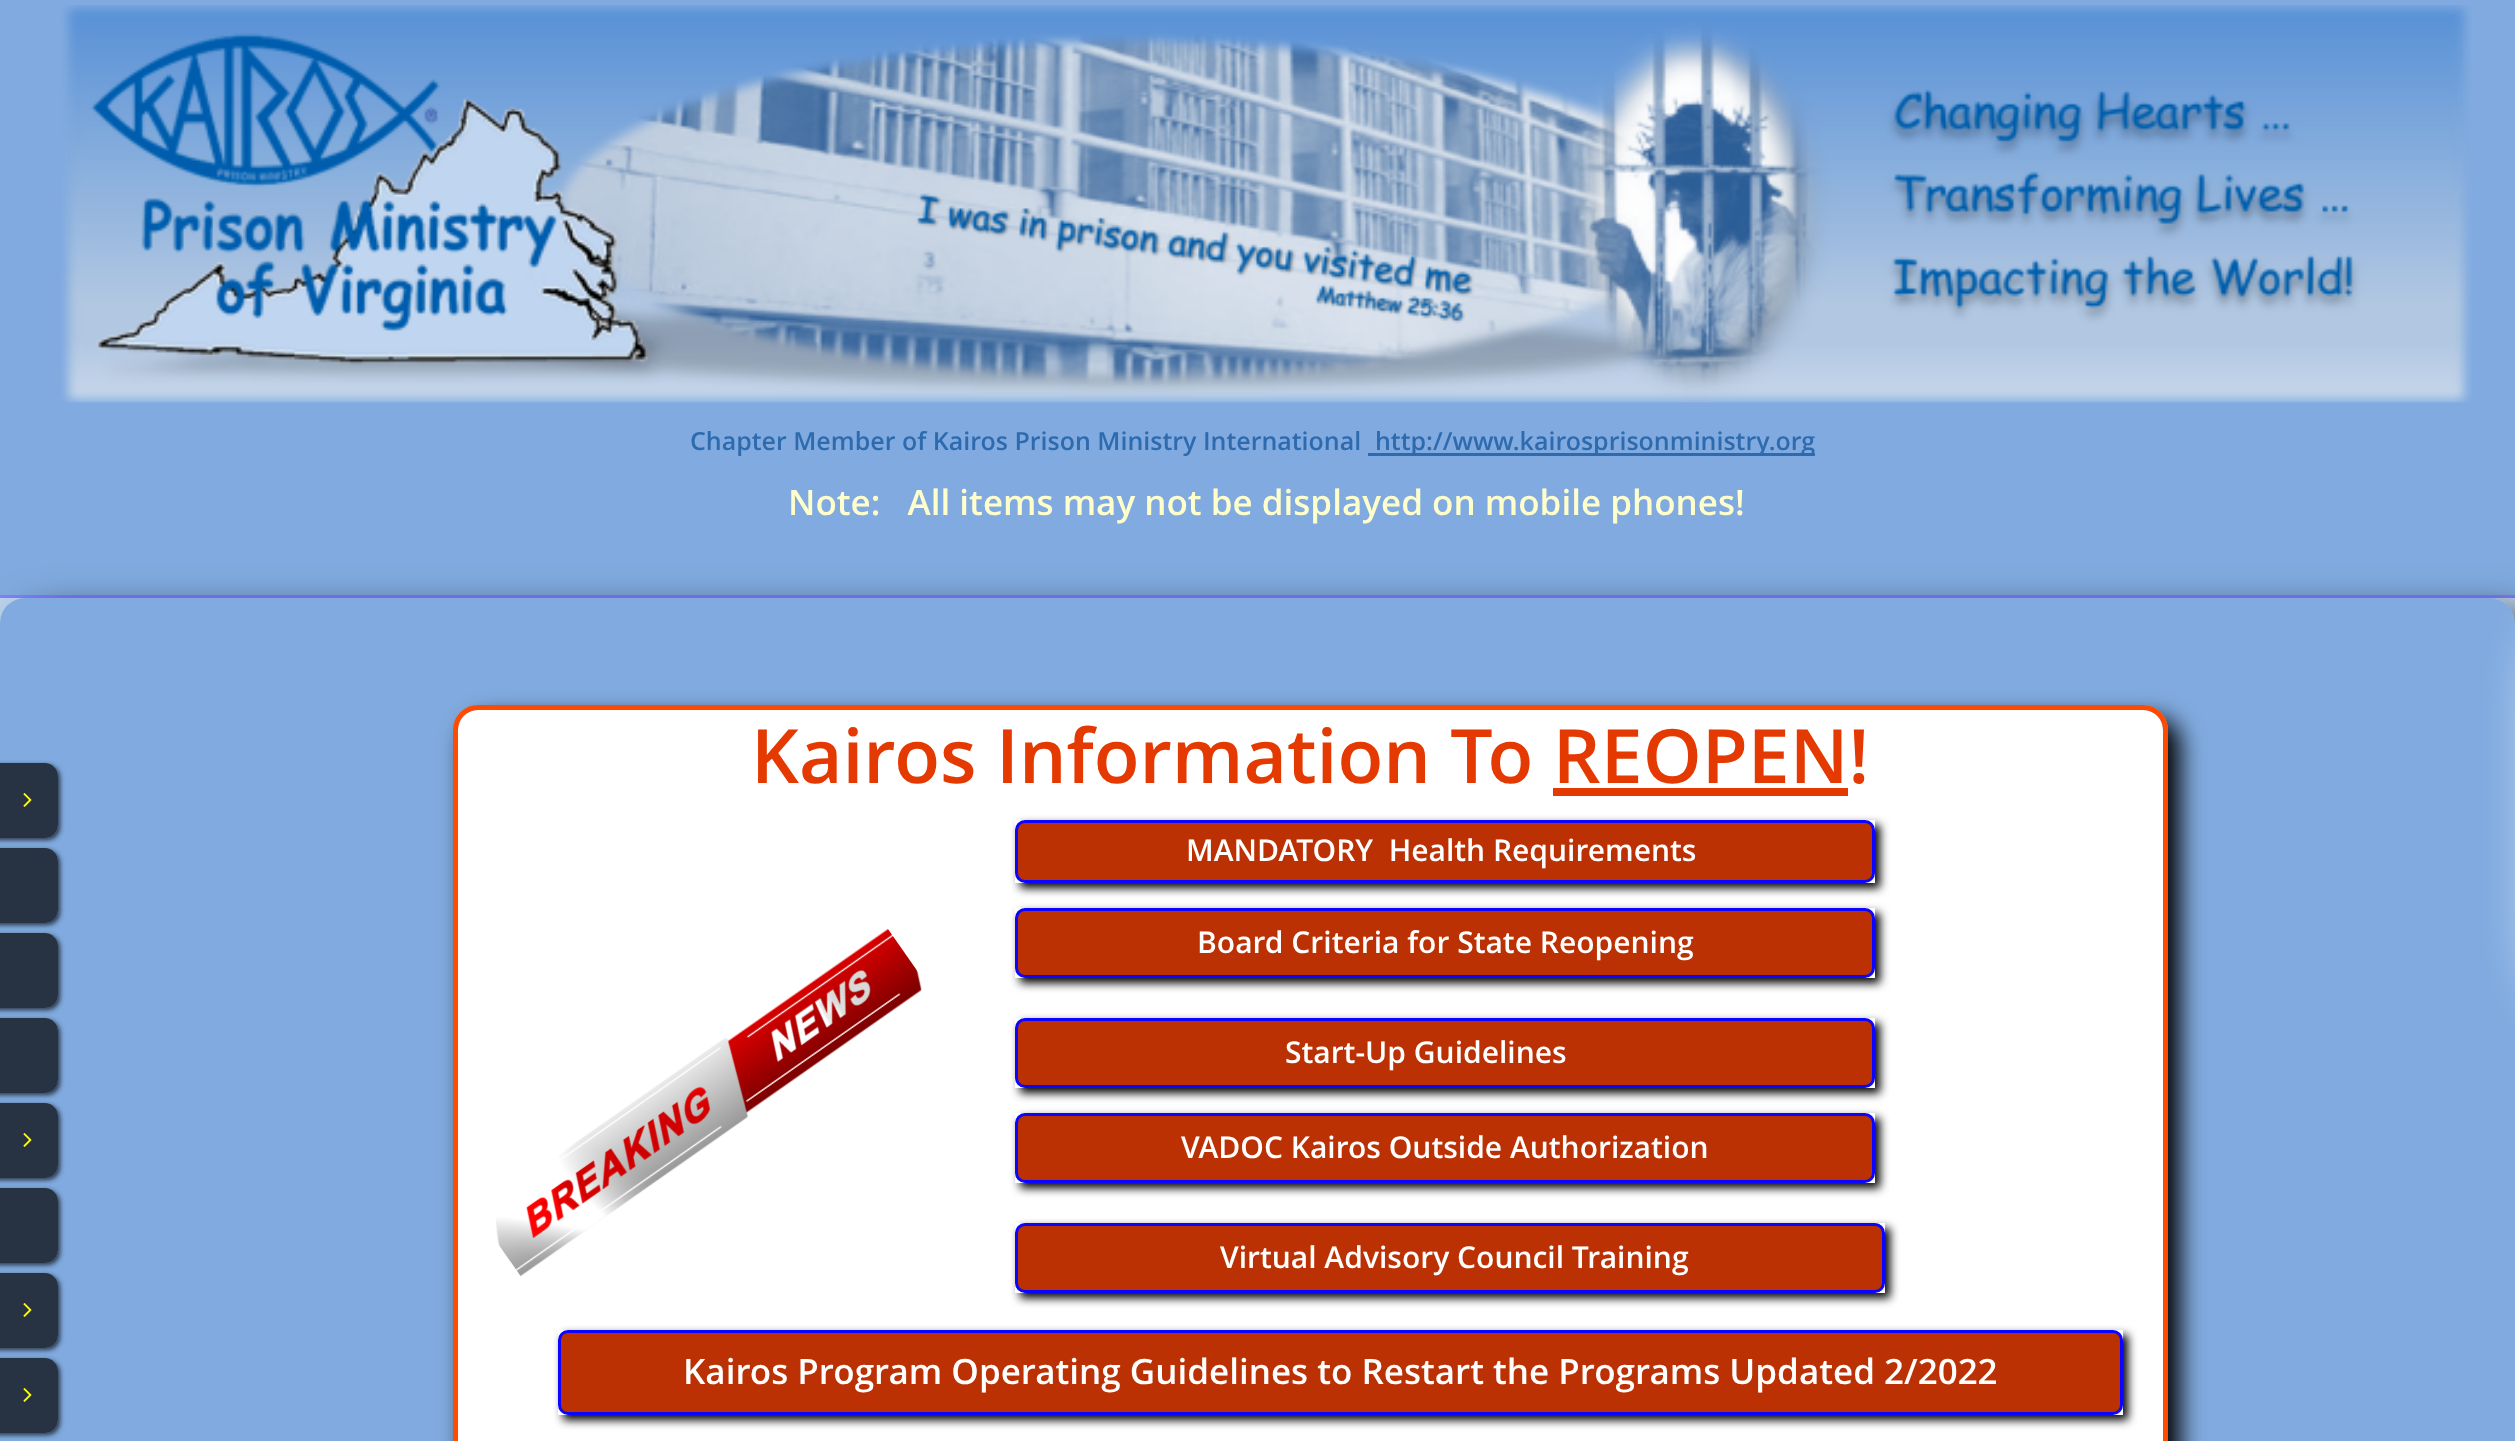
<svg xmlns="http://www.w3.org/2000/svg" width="2515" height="1441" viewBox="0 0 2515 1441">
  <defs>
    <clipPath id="clip1"><path d="M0 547H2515V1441H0ZM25 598H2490C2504 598 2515 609 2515 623V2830C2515 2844 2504 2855 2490 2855H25C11 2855 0 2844 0 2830V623C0 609 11 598 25 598Z" clip-rule="evenodd"/></clipPath>
    <filter id="blur1" x="-50%" y="-200%" width="200%" height="500%"><feGaussianBlur stdDeviation="25"/></filter>
    <clipPath id="clip2"><path d="M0 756H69V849H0ZM-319 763H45C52 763 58 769 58 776V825C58 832 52 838 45 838H-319C-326 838-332 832-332 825V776C-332 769-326 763-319 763Z" clip-rule="evenodd"/></clipPath>
    <filter id="blur2" x="-50%" y="-200%" width="200%" height="500%"><feGaussianBlur stdDeviation="2.5"/></filter>
    <clipPath id="clip3"><path d="M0 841H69V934H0ZM-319 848H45C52 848 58 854 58 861V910C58 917 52 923 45 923H-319C-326 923-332 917-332 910V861C-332 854-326 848-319 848Z" clip-rule="evenodd"/></clipPath>
    <clipPath id="clip4"><path d="M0 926H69V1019H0ZM-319 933H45C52 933 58 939 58 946V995C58 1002 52 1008 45 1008H-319C-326 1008-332 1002-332 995V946C-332 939-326 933-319 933Z" clip-rule="evenodd"/></clipPath>
    <clipPath id="clip5"><path d="M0 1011H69V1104H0ZM-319 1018H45C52 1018 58 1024 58 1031V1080C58 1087 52 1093 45 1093H-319C-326 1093-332 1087-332 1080V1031C-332 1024-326 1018-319 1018Z" clip-rule="evenodd"/></clipPath>
    <clipPath id="clip6"><path d="M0 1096H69V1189H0ZM-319 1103H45C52 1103 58 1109 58 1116V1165C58 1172 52 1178 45 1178H-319C-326 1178-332 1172-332 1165V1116C-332 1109-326 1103-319 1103Z" clip-rule="evenodd"/></clipPath>
    <clipPath id="clip7"><path d="M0 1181H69V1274H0ZM-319 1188H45C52 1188 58 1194 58 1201V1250C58 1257 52 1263 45 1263H-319C-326 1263-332 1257-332 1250V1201C-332 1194-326 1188-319 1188Z" clip-rule="evenodd"/></clipPath>
    <clipPath id="clip8"><path d="M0 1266H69V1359H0ZM-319 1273H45C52 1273 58 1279 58 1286V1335C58 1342 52 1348 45 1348H-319C-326 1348-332 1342-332 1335V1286C-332 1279-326 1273-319 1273Z" clip-rule="evenodd"/></clipPath>
    <clipPath id="clip9"><path d="M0 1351H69V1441H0ZM-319 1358H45C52 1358 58 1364 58 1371V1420C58 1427 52 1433 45 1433H-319C-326 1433-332 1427-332 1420V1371C-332 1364-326 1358-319 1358Z" clip-rule="evenodd"/></clipPath>
    <clipPath id="clip10"><path d="M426 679H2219V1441H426ZM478 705H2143C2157 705 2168 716 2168 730V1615C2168 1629 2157 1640 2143 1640H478C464 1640 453 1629 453 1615V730C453 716 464 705 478 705Z" clip-rule="evenodd"/></clipPath>
    <filter id="blur3" x="-50%" y="-200%" width="200%" height="500%"><feGaussianBlur stdDeviation="12.5"/></filter>
    <clipPath id="clip11"><path d="M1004 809H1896V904H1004ZM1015 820H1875V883H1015Z" clip-rule="evenodd"/></clipPath>
    <filter id="blur4" x="-50%" y="-200%" width="200%" height="500%"><feGaussianBlur stdDeviation="5"/></filter>
    <clipPath id="clip12"><path d="M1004 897H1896V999H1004ZM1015 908H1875V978H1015Z" clip-rule="evenodd"/></clipPath>
    <clipPath id="clip13"><path d="M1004 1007H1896V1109H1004ZM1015 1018H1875V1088H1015Z" clip-rule="evenodd"/></clipPath>
    <clipPath id="clip14"><path d="M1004 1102H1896V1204H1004ZM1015 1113H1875V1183H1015Z" clip-rule="evenodd"/></clipPath>
    <clipPath id="clip15"><path d="M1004 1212H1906V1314H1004ZM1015 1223H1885V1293H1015Z" clip-rule="evenodd"/></clipPath>
    <clipPath id="clip16"><path d="M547 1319H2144V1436H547ZM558 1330H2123V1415H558Z" clip-rule="evenodd"/></clipPath>
  </defs>
  <rect width="100%" height="100%" fill="#bdd4ee"/>
  <rect x="0" y="0" width="2515" height="595" fill="#81abe0"/>
  <rect x="0" y="595" width="2515" height="3" fill="#8280ff"/>
  <image x="61" y="5" width="2411" height="398" href="img1.png"/>
  <text x="690" y="450" font-family="Open Sans" font-size="25" font-weight="600" fill="#2d6aae">Chapter Member of Kairos Prison Ministry International</text>
  <rect x="1368" y="453" width="447" height="3" fill="#2d6aae"/>
  <text x="1375" y="450" font-family="Open Sans" font-size="25" font-weight="600" fill="#2d6aae">http://www.kairosprisonministry.org</text>
  <text x="788" y="515" font-family="Open Sans" font-size="35" font-weight="600" fill="#ffffcc" xml:space="preserve">Note:   All items may not be displayed on mobile phones!</text>
  <rect x="0" y="598" width="2515" height="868" rx="25" fill="#81abe0"/>
  <g clip-path="url(#clip1)">
    <rect x="25" y="623" width="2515" height="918" rx="25" fill="#000000" filter="url(#blur1)"/>
  </g>
  <path d="M0 763H45C52 763 58 769 58 776V825C58 832 52 838 45 838H0Z" fill="#273343"/>
  <g clip-path="url(#clip2)">
    <rect x="-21" y="765" width="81" height="75" rx="13" fill="#273343" filter="url(#blur2)"/>
  </g>
  <image x="23" y="793" width="9" height="14" href="img2.png"/>
  <path d="M0 848H45C52 848 58 854 58 861V910C58 917 52 923 45 923H0Z" fill="#273343"/>
  <g clip-path="url(#clip3)">
    <rect x="-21" y="850" width="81" height="75" rx="13" fill="#273343" filter="url(#blur2)"/>
  </g>
  <path d="M0 933H45C52 933 58 939 58 946V995C58 1002 52 1008 45 1008H0Z" fill="#273343"/>
  <g clip-path="url(#clip4)">
    <rect x="-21" y="935" width="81" height="75" rx="13" fill="#273343" filter="url(#blur2)"/>
  </g>
  <path d="M0 1018H45C52 1018 58 1024 58 1031V1080C58 1087 52 1093 45 1093H0Z" fill="#273343"/>
  <g clip-path="url(#clip5)">
    <rect x="-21" y="1020" width="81" height="75" rx="13" fill="#273343" filter="url(#blur2)"/>
  </g>
  <path d="M0 1103H45C52 1103 58 1109 58 1116V1165C58 1172 52 1178 45 1178H0Z" fill="#273343"/>
  <g clip-path="url(#clip6)">
    <rect x="-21" y="1105" width="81" height="75" rx="13" fill="#273343" filter="url(#blur2)"/>
  </g>
  <image x="23" y="1133" width="9" height="14" href="img2.png"/>
  <path d="M0 1188H45C52 1188 58 1194 58 1201V1250C58 1257 52 1263 45 1263H0Z" fill="#273343"/>
  <g clip-path="url(#clip7)">
    <rect x="-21" y="1190" width="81" height="75" rx="13" fill="#273343" filter="url(#blur2)"/>
  </g>
  <path d="M0 1273H45C52 1273 58 1279 58 1286V1335C58 1342 52 1348 45 1348H0Z" fill="#273343"/>
  <g clip-path="url(#clip8)">
    <rect x="-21" y="1275" width="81" height="75" rx="13" fill="#273343" filter="url(#blur2)"/>
  </g>
  <image x="23" y="1303" width="9" height="14" href="img2.png"/>
  <path d="M0 1358H45C52 1358 58 1364 58 1371V1420C58 1427 52 1433 45 1433H0Z" fill="#273343"/>
  <g clip-path="url(#clip9)">
    <rect x="-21" y="1360" width="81" height="75" rx="13" fill="#273343" filter="url(#blur2)"/>
  </g>
  <image x="23" y="1388" width="9" height="14" href="img2.png"/>
  <rect x="458" y="710" width="1705" height="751" rx="20" fill="#ffffff"/>
  <g clip-path="url(#clip10)">
    <rect x="465" y="718" width="1715" height="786" rx="25" fill="#000000" filter="url(#blur3)"/>
  </g>
  <rect x="455.5" y="707.5" width="1710" height="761" rx="22.5" fill="none" stroke="#ff4b00" stroke-width="5"/>
  <text x="751" y="783" font-family="Open Sans" font-size="75" font-weight="600" fill="#e43900">Kairos Information To REOPEN!</text>
  <rect x="1553" y="788" width="295" height="8" fill="#e43900"/>
  <g clip-path="url(#clip11)">
    <rect x="1020" y="825" width="860" height="63" fill="#000000" filter="url(#blur4)"/>
  </g>
  <rect x="1016.5" y="821.5" width="857" height="60" rx="8.5" fill="#bb3103" stroke="#0b04ff" stroke-width="3"/>
  <text x="1186" y="861" font-family="Open Sans" font-size="30" font-weight="600" fill="#ffffff" xml:space="preserve">MANDATORY  Health Requirements</text>
  <image x="496" y="928" width="426" height="349" href="img3.png"/>
  <g clip-path="url(#clip12)">
    <rect x="1020" y="913" width="860" height="70" fill="#000000" filter="url(#blur4)"/>
  </g>
  <rect x="1016.5" y="909.5" width="857" height="67" rx="8.5" fill="#bb3103" stroke="#0b04ff" stroke-width="3"/>
  <text x="1197" y="953" font-family="Open Sans" font-size="30" font-weight="600" fill="#ffffff">Board Criteria for State Reopening</text>
  <g clip-path="url(#clip13)">
    <rect x="1020" y="1023" width="860" height="70" fill="#000000" filter="url(#blur4)"/>
  </g>
  <rect x="1016.5" y="1019.5" width="857" height="67" rx="8.5" fill="#bb3103" stroke="#0b04ff" stroke-width="3"/>
  <text x="1285" y="1063" font-family="Open Sans" font-size="30" font-weight="600" fill="#ffffff">Start-Up Guidelines</text>
  <g clip-path="url(#clip14)">
    <rect x="1020" y="1118" width="860" height="70" fill="#000000" filter="url(#blur4)"/>
  </g>
  <rect x="1016.5" y="1114.5" width="857" height="67" rx="8.5" fill="#bb3103" stroke="#0b04ff" stroke-width="3"/>
  <text x="1181" y="1158" font-family="Open Sans" font-size="30" font-weight="600" fill="#ffffff">VADOC Kairos Outside Authorization</text>
  <g clip-path="url(#clip15)">
    <rect x="1020" y="1228" width="870" height="70" fill="#000000" filter="url(#blur4)"/>
  </g>
  <rect x="1016.5" y="1224.5" width="867" height="67" rx="8.5" fill="#bb3103" stroke="#0b04ff" stroke-width="3"/>
  <text x="1220" y="1268" font-family="Open Sans" font-size="30" font-weight="600" fill="#ffffff">Virtual Advisory Council Training</text>
  <g clip-path="url(#clip16)">
    <rect x="563" y="1335" width="1565" height="85" fill="#000000" filter="url(#blur4)"/>
  </g>
  <rect x="559.5" y="1331.5" width="1562" height="82" rx="8.5" fill="#bb3103" stroke="#0b04ff" stroke-width="3"/>
  <text x="683" y="1384" font-family="Open Sans" font-size="35" font-weight="600" fill="#ffffff">Kairos Program Operating Guidelines to Restart the Programs Updated 2/2022</text>
  <rect x="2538" y="603" width="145" height="422" rx="93" fill="#ffffff" filter="url(#blur1)"/>
</svg>
